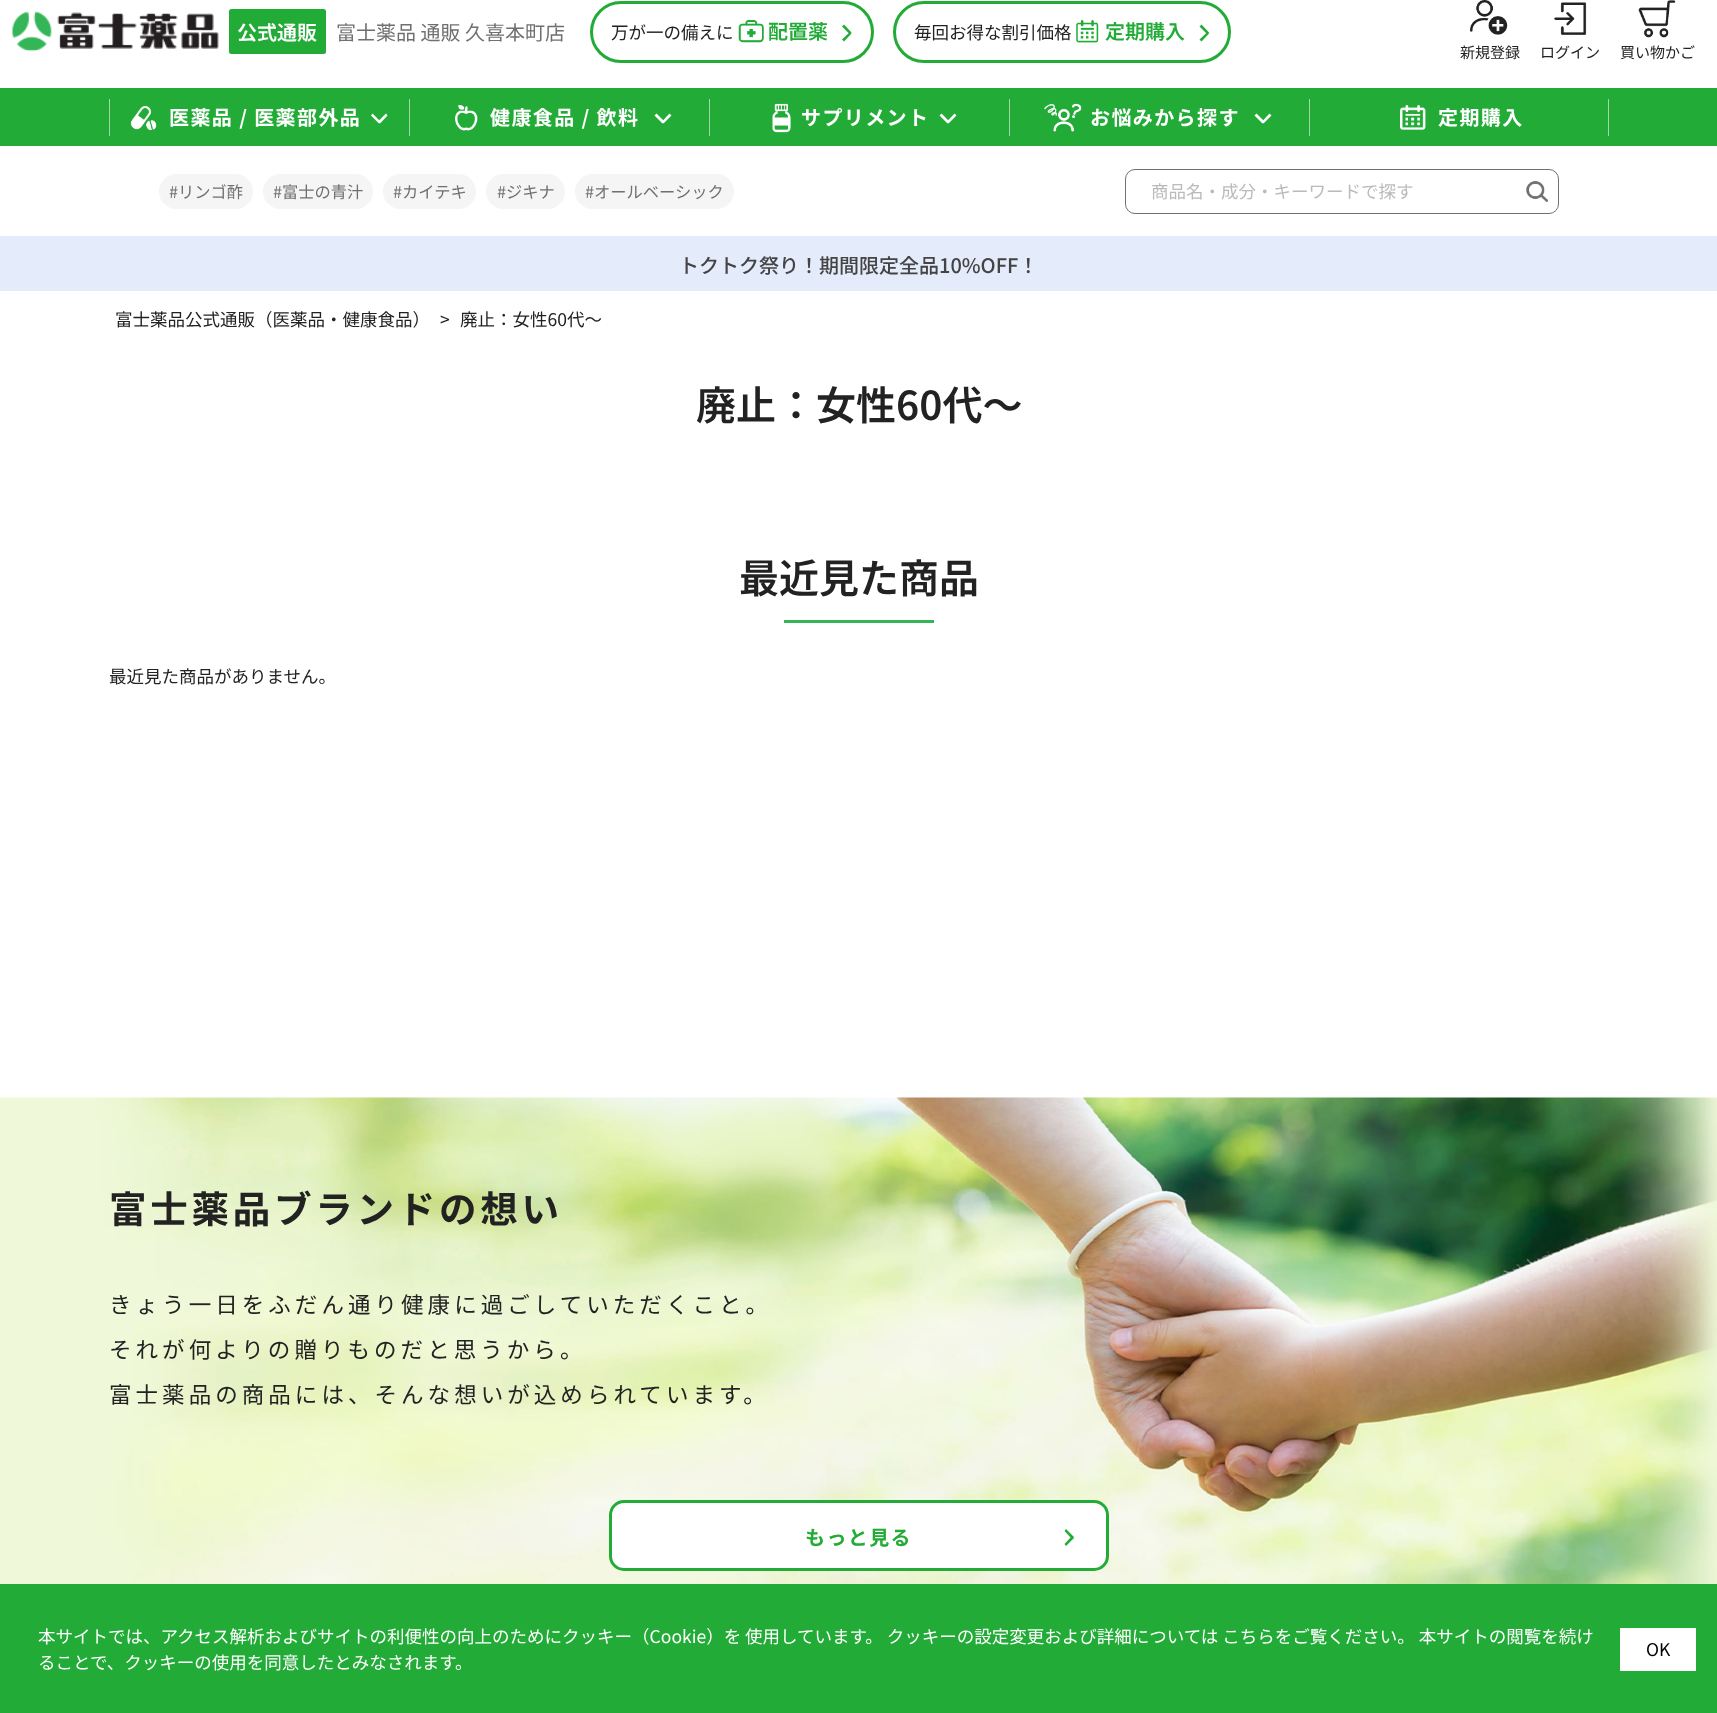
<svg xmlns="http://www.w3.org/2000/svg" width="1717" height="1713" viewBox="0 0 1717 1713">
  <rect width="100%" height="100%" fill="#ffffff"/>
  <image x="12" y="11" width="207" height="41" href="img1.png"/>
  <rect x="229" y="9" width="97" height="45" rx="2.5" fill="#22ab37"/>
  <text x="237" y="40" font-family="Noto Sans JP" font-size="20" font-weight="600" fill="#ffffff">公式通販</text>
  <text x="336" y="40" font-family="Noto Sans JP" font-size="20" fill="#707070">富士薬品 通販 久喜本町店</text>
  <rect x="591.5" y="2.5" width="281" height="59" rx="29.5" fill="none" stroke="#22ab37" stroke-width="3"/>
  <text x="611" y="39" font-family="Noto Sans JP" font-size="17.5" fill="#222222">万が一の備えに</text>
  <image x="738" y="20" width="26" height="23" href="img2.png"/>
  <text x="768" y="39" font-family="Noto Sans JP" font-size="20" font-weight="600" fill="#22ab37">配置薬</text>
  <path d="M842 26.5L844 24.5L851.5 32.5L850 34.5Z" fill="#22ab37"/>
  <path d="M842 39.5L850 32L851.5 33.5L844 41.5Z" fill="#22ab37"/>
  <rect x="894.5" y="2.5" width="335" height="59" rx="29.5" fill="none" stroke="#22ab37" stroke-width="3"/>
  <text x="914" y="39" font-family="Noto Sans JP" font-size="17.5" fill="#222222">毎回お得な割引価格</text>
  <image x="1076" y="20" width="23" height="23" href="img3.png"/>
  <text x="1105" y="39" font-family="Noto Sans JP" font-size="20" font-weight="600" fill="#22ab37">定期購入</text>
  <path d="M1199.5 26.5L1201.5 24.5L1209 32.5L1207.5 34.5Z" fill="#22ab37"/>
  <path d="M1199.5 39.5L1207.5 32L1209 33.5L1201.5 41.5Z" fill="#22ab37"/>
  <image x="1470" y="0" width="38" height="35" href="img4.png"/>
  <text x="1460" y="58" font-family="Noto Sans JP" font-size="15" fill="#222222">新規登録</text>
  <image x="1554" y="2" width="33" height="33" href="img5.png"/>
  <text x="1540" y="58" font-family="Noto Sans JP" font-size="15" fill="#222222">ログイン</text>
  <image x="1638" y="0" width="38" height="38" href="img6.png"/>
  <text x="1620" y="58" font-family="Noto Sans JP" font-size="15" fill="#222222">買い物かご</text>
  <rect x="0" y="88" width="1717" height="58" fill="#22ab37"/>
  <rect x="109" y="99" width="1" height="37" fill="#a1d7a9"/>
  <image x="130" y="105" width="27" height="25" href="img7.png"/>
  <text x="169" y="125" font-family="Noto Sans JP" font-size="20" font-weight="bold" letter-spacing="1.4" fill="#ffffff">医薬品 / 医薬部外品</text>
  <path d="M386 113.5L387.5 115.5L380 123.5L378 121.5Z" fill="#ffffff"/>
  <path d="M372.5 113.5L380.5 121.5L379 123.5L371 115.5Z" fill="#ffffff"/>
  <rect x="409" y="99" width="1" height="37" fill="#a1d7a9"/>
  <image x="455" y="105" width="23" height="26" href="img8.png"/>
  <text x="490" y="125" font-family="Noto Sans JP" font-size="20" font-weight="bold" letter-spacing="1.4" fill="#ffffff">健康食品 / 飲料</text>
  <path d="M669.5 113.5L671.5 115.5L663.5 123.5L662 121.5Z" fill="#ffffff"/>
  <path d="M656.5 113.5L664.5 121.5L662.5 123.5L654.5 115.5Z" fill="#ffffff"/>
  <rect x="709" y="99" width="1" height="37" fill="#a1d7a9"/>
  <image x="772" y="103" width="19" height="30" href="img9.png"/>
  <text x="801" y="125" font-family="Noto Sans JP" font-size="20" font-weight="bold" letter-spacing="1.4" fill="#ffffff">サプリメント</text>
  <path d="M954.5 113.5L956.5 115.5L948.5 123.5L947 121.5Z" fill="#ffffff"/>
  <path d="M941.5 113.5L949.5 121.5L947.5 123.5L939.5 115.5Z" fill="#ffffff"/>
  <rect x="1009" y="99" width="1" height="37" fill="#a1d7a9"/>
  <image x="1044" y="103" width="38" height="29" href="img10.png"/>
  <text x="1090" y="125" font-family="Noto Sans JP" font-size="20" font-weight="bold" letter-spacing="1.4" fill="#ffffff">お悩みから探す</text>
  <path d="M1269.5 113.5L1271.5 115.5L1263.5 123.5L1262 121.5Z" fill="#ffffff"/>
  <path d="M1256.5 113.5L1264.5 121.5L1262.5 123.5L1254.5 115.5Z" fill="#ffffff"/>
  <rect x="1309" y="99" width="1" height="37" fill="#a1d7a9"/>
  <image x="1400" y="105" width="26" height="25" href="img11.png"/>
  <text x="1438" y="125" font-family="Noto Sans JP" font-size="20" font-weight="bold" letter-spacing="1.4" fill="#ffffff">定期購入</text>
  <rect x="1608" y="99" width="1" height="37" fill="#a1d7a9"/>
  <rect x="159" y="174" width="94" height="35" rx="17.5" fill="#f5f5f5"/>
  <text x="169" y="198" font-family="Noto Sans JP" font-size="16.25" fill="#707070">#リンゴ酢</text>
  <rect x="263" y="174" width="110" height="35" rx="17.5" fill="#f5f5f5"/>
  <text x="273" y="198" font-family="Noto Sans JP" font-size="16.25" fill="#707070">#富士の青汁</text>
  <rect x="383" y="174" width="93" height="35" rx="17.5" fill="#f5f5f5"/>
  <text x="393" y="198" font-family="Noto Sans JP" font-size="16.25" fill="#707070">#カイテキ</text>
  <rect x="486" y="174" width="79" height="35" rx="17.5" fill="#f5f5f5"/>
  <text x="497" y="198" font-family="Noto Sans JP" font-size="16.25" fill="#707070">#ジキナ</text>
  <rect x="575" y="174" width="159" height="35" rx="17.5" fill="#f5f5f5"/>
  <text x="585" y="198" font-family="Noto Sans JP" font-size="16.25" fill="#707070">#オールベーシック</text>
  <rect x="1125.5" y="169.5" width="433" height="44" rx="9.5" fill="none" stroke="#707070"/>
  <text x="1151" y="198" font-family="Noto Sans JP" font-size="17.5" fill="#bababa">商品名・成分・キーワードで探す</text>
  <image x="1526" y="181" width="22" height="21" href="img12.png"/>
  <rect x="0" y="236" width="1717" height="55" fill="#e4ecfc"/>
  <text x="679" y="273" font-family="Noto Sans JP" font-size="20" font-weight="500" fill="#444444">トクトク祭り！期間限定全品10%OFF！</text>
  <text x="115" y="326" font-family="Noto Sans JP" font-size="17.5" fill="#222222">富士薬品公式通販（医薬品・健康食品）</text>
  <text x="440" y="326" font-family="Noto Sans JP" font-size="17.5" fill="#222222">&gt;</text>
  <text x="460" y="326" font-family="Noto Sans JP" font-size="17.5" fill="#222222">廃止：女性60代～</text>
  <text x="696" y="420" font-family="Noto Sans JP" font-size="40" font-weight="600" fill="#222222">廃止：女性60代～</text>
  <text x="739" y="593" font-family="Noto Sans JP" font-size="40" font-weight="600" fill="#222222">最近見た商品</text>
  <rect x="784" y="620" width="150" height="3" fill="#34b558"/>
  <text x="109" y="683" font-family="Noto Sans JP" font-size="17.5" fill="#222222">最近見た商品がありません。</text>
  <image x="0" y="1097" width="1717" height="487" href="img13.png"/>
  <text x="109" y="1223" font-family="Noto Sans JP" font-size="37.5" font-weight="bold" letter-spacing="3.75" fill="#222222">富士薬品ブランドの想い</text>
  <text x="109" y="1313" font-family="Noto Sans JP" font-size="22.5" letter-spacing="4.05" fill="#222222">きょう一日をふだん通り健康に過ごしていただくこと。</text>
  <text x="109" y="1358" font-family="Noto Sans JP" font-size="22.5" letter-spacing="4.05" fill="#222222">それが何よりの贈りものだと思うから。</text>
  <text x="109" y="1403" font-family="Noto Sans JP" font-size="22.5" letter-spacing="4.05" fill="#222222">富士薬品の商品には、そんな想いが込められています。</text>
  <rect x="610.5" y="1501.5" width="497" height="68" rx="13.5" fill="#ffffff" stroke="#22ab37" stroke-width="3"/>
  <text x="805" y="1545" font-family="Noto Sans JP" font-size="20" font-weight="bold" letter-spacing="1.4" fill="#22ab37">もっと見る</text>
  <path d="M1064.5 1531L1066 1529L1074 1537L1072 1539Z" fill="#22ab37"/>
  <path d="M1064.5 1544L1072 1536L1074 1538L1066 1546Z" fill="#22ab37"/>
  <rect x="0" y="1584" width="1717" height="129" fill="#22ab37"/>
  <text x="38" y="1643" font-family="Noto Sans JP" font-size="17.5" fill="#ffffff">本サイトでは、アクセス解析およびサイトの利便性の向上のためにクッキー（Cookie）を 使用しています。 クッキーの設定変更および詳細については こちらをご覧ください。 本サイトの閲覧を続け</text>
  <text x="38" y="1669" font-family="Noto Sans JP" font-size="17.5" fill="#ffffff">ることで、クッキーの使用を同意したとみなされます。</text>
  <rect x="1620" y="1628" width="76" height="43" fill="#ffffff"/>
  <text x="1646" y="1656" font-family="Noto Sans JP" font-size="17.5" fill="#000000">OK</text>
</svg>
